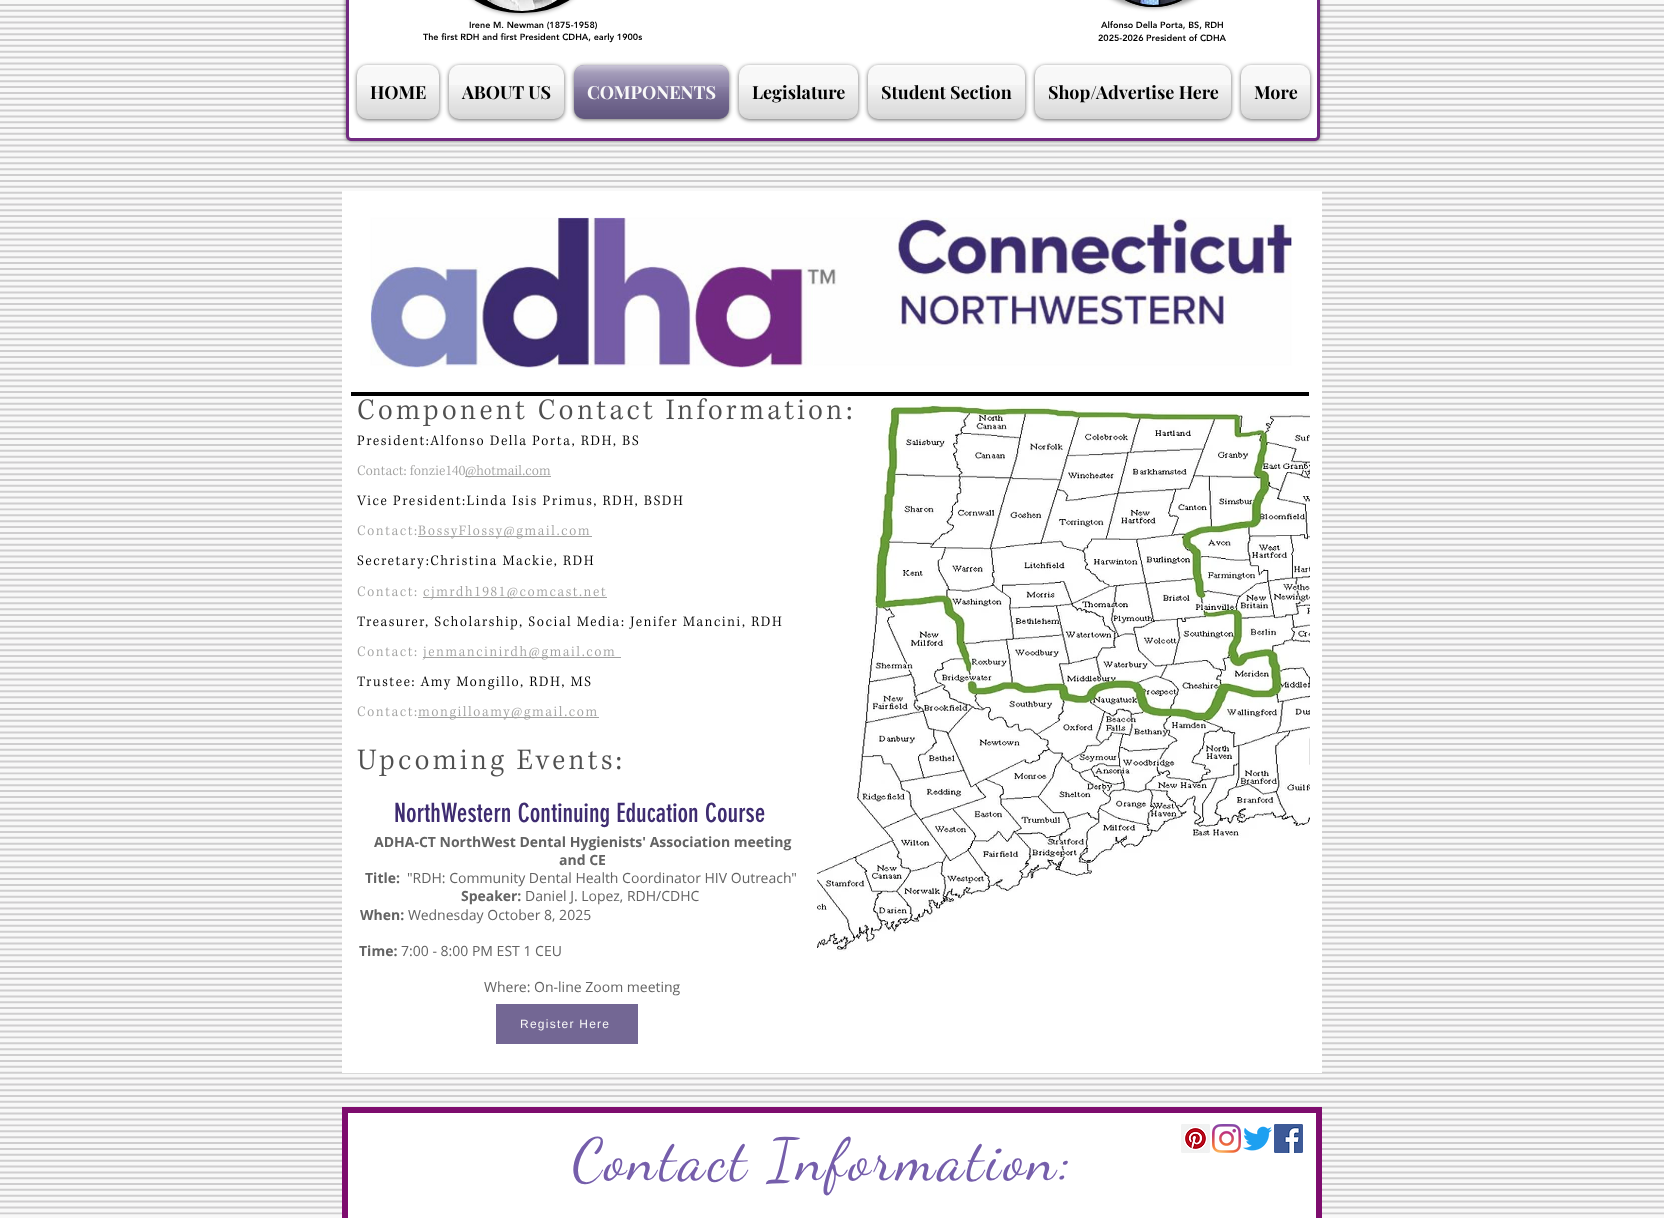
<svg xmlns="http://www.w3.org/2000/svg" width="1664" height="1218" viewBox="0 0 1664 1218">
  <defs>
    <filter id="blur1" x="-50%" y="-200%" width="200%" height="500%"><feGaussianBlur stdDeviation="2"/></filter>
  </defs>
  <rect width="100%" height="100%" fill="#f8f8f8"/>
  <image x="0" y="4" width="1664" height="1211" href="img1.png"/>
  <rect x="346" y="-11" width="974" height="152" rx="5" fill="#000000" fill-opacity="0.6" filter="url(#blur1)"/>
  <rect x="347.5" y="-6.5" width="971" height="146" rx="3.5" fill="#ffffff" stroke="#712a81" stroke-width="3"/>
  <rect x="458" y="-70" width="128" height="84" rx="63.5" fill="#000000" fill-opacity="0.4" filter="url(#blur1)"/>
  <rect x="459" y="-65" width="126" height="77" rx="62.5" fill="#000000" stroke="#000000" stroke-width="2"/>
  <image x="487" y="0" width="70" height="11" href="img2.png"/>
  <rect x="1091" y="-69" width="125" height="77" rx="62.5" fill="#000000" fill-opacity="0.4" filter="url(#blur1)"/>
  <ellipse cx="1153.5" cy="-56.5" rx="62.5" ry="63.5" fill="#000000"/>
  <path d="M1153.5-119C1187.5-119 1215-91 1215-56.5C1215-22 1187.5 6 1153.5 6C1119.5 6 1092-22 1092-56.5C1092-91 1119.5-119 1153.5-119Z" fill="none" stroke="#000000" stroke-width="2"/>
  <image x="1130" y="0" width="47" height="5" href="img3.png"/>
  <text x="469" y="28" font-family="'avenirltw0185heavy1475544'" font-size="9" font-weight="900" fill="#000000">Irene M. Newman (1875-1958)</text>
  <text x="423" y="40" font-family="'avenirltw0185heavy1475544'" font-size="9" font-weight="900" fill="#000000">The first RDH and first President CDHA, early 1900s</text>
  <text x="1101" y="28" font-family="'avenirltw0185heavy1475544'" font-size="9" font-weight="900" fill="#000000">Alfonso Della Porta, BS, RDH</text>
  <text x="1098" y="41" font-family="'avenirltw0185heavy1475544'" font-size="9" font-weight="900" fill="#000000">2025-2026 President of CDHA</text>
  <rect x="357" y="66" width="82" height="54" rx="10" fill="#000000" fill-opacity="0.6" filter="url(#blur1)"/>
  <rect x="357" y="65" width="82" height="54" rx="10" fill="#f8f8f8"/>
  <image x="363" y="65" width="70" height="2" href="img4.png"/>
  <image x="357" y="85" width="82" height="34" href="img5.png"/>
  <text x="370" y="99" font-family="Playfair Display" font-size="18" font-weight="bold" fill="#000000">HOME</text>
  <rect x="449" y="66" width="115" height="54" rx="10" fill="#000000" fill-opacity="0.6" filter="url(#blur1)"/>
  <rect x="449" y="65" width="115" height="54" rx="10" fill="#f8f8f8"/>
  <image x="455" y="65" width="103" height="2" href="img6.png"/>
  <image x="449" y="85" width="115" height="34" href="img7.png"/>
  <text x="462" y="99" font-family="Playfair Display" font-size="18" font-weight="bold" fill="#000000">ABOUT US</text>
  <rect x="574" y="66" width="155" height="54" rx="10" fill="#000000" fill-opacity="0.6" filter="url(#blur1)"/>
  <rect x="574" y="65" width="155" height="54" rx="10" fill="#736794"/>
  <image x="574" y="65" width="155" height="45" href="img8.png"/>
  <image x="574" y="87" width="155" height="32" href="img9.png"/>
  <text x="587" y="99" font-family="Playfair Display" font-size="18" font-weight="bold" fill="#f8f8f8">COMPONENTS</text>
  <rect x="739" y="66" width="119" height="54" rx="10" fill="#000000" fill-opacity="0.6" filter="url(#blur1)"/>
  <rect x="739" y="65" width="119" height="54" rx="10" fill="#f8f8f8"/>
  <image x="745" y="65" width="107" height="2" href="img10.png"/>
  <image x="739" y="85" width="119" height="34" href="img11.png"/>
  <text x="752" y="99" font-family="Playfair Display" font-size="18" font-weight="bold" fill="#000000">Legislature</text>
  <rect x="868" y="66" width="157" height="54" rx="10" fill="#000000" fill-opacity="0.6" filter="url(#blur1)"/>
  <rect x="868" y="65" width="157" height="54" rx="10" fill="#f8f8f8"/>
  <image x="874" y="65" width="145" height="2" href="img12.png"/>
  <image x="868" y="85" width="157" height="34" href="img13.png"/>
  <text x="881" y="99" font-family="Playfair Display" font-size="18" font-weight="bold" fill="#000000">Student Section</text>
  <rect x="1035" y="66" width="196" height="54" rx="10" fill="#000000" fill-opacity="0.6" filter="url(#blur1)"/>
  <rect x="1035" y="65" width="196" height="54" rx="10" fill="#f8f8f8"/>
  <image x="1041" y="65" width="184" height="2" href="img14.png"/>
  <image x="1035" y="85" width="196" height="34" href="img15.png"/>
  <text x="1048" y="99" font-family="Playfair Display" font-size="18" font-weight="bold" fill="#000000">Shop/Advertise Here</text>
  <rect x="1241" y="66" width="69" height="54" rx="10" fill="#000000" fill-opacity="0.6" filter="url(#blur1)"/>
  <rect x="1241" y="65" width="69" height="54" rx="10" fill="#f8f8f8"/>
  <image x="1247" y="65" width="57" height="2" href="img16.png"/>
  <image x="1241" y="85" width="69" height="34" href="img17.png"/>
  <text x="1254" y="99" font-family="Playfair Display" font-size="18" font-weight="bold" fill="#000000">More</text>
  <rect x="342" y="191" width="980" height="882" fill="#ffffff"/>
  <image x="370" y="217" width="922" height="151" href="img18.png"/>
  <rect x="351" y="392" width="958" height="4" fill="#000000"/>
  <image x="358" y="399" width="215" height="28" href="img19.png"/>
  <image x="578" y="405" width="15" height="15" href="img20.png"/>
  <image x="596" y="399" width="78" height="21" href="img21.png"/>
  <image x="817" y="405" width="493" height="547" href="img37.png"/>
  <image x="678" y="398" width="173" height="22" href="img22.png"/>
  <image x="357" y="434" width="282" height="13" href="img23.png"/>
  <image x="357" y="464" width="108" height="12" href="img24.png"/>
  <rect x="465" y="476" width="86" height="1" fill="#a0a09f"/>
  <image x="465" y="465" width="86" height="13" href="img25.png"/>
  <image x="356" y="495" width="59" height="11" href="img26.png"/>
  <image x="417" y="495" width="266" height="12" href="img27.png"/>
  <image x="357" y="525" width="60" height="11" href="img28.png"/>
  <rect x="418" y="536" width="174" height="1" fill="#a0a09f"/>
  <image x="418" y="525" width="172" height="14" href="img29.png"/>
  <image x="357" y="555" width="237" height="14" href="img30.png"/>
  <image x="357" y="586" width="60" height="11" href="img28.png"/>
  <rect x="423" y="597" width="184" height="1" fill="#a0a09f"/>
  <image x="423" y="586" width="183" height="14" href="img31.png"/>
  <image x="357" y="615" width="425" height="15" href="img32.png"/>
  <image x="357" y="646" width="60" height="11" href="img28.png"/>
  <rect x="423" y="657" width="198" height="1" fill="#a0a09f"/>
  <image x="422" y="646" width="193" height="14" href="img33.png"/>
  <image x="357" y="676" width="234" height="14" href="img34.png"/>
  <image x="357" y="706" width="60" height="11" href="img28.png"/>
  <rect x="418" y="717" width="181" height="1" fill="#a0a09f"/>
  <image x="418" y="706" width="179" height="14" href="img35.png"/>
  <image x="357" y="749" width="264" height="28" href="img36.png"/>
  <text x="394" y="822" font-family="'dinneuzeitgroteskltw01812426'" font-size="26" fill="#3e2c70">NorthWestern Continuing Education Course</text>
  <text x="374" y="847" font-family="Open Sans" font-size="14" font-weight="bold" fill="#636363">ADHA-CT NorthWest Dental Hygienists' Association meeting</text>
  <text x="559" y="865" font-family="Open Sans" font-size="14" font-weight="bold" fill="#636363">and CE</text>
  <text x="365" y="883" font-family="Open Sans" font-size="14" font-weight="bold" fill="#636363">Title:</text>
  <text x="407" y="883" font-family="Open Sans" font-size="14" fill="#636363">"RDH: Community Dental Health Coordinator HIV Outreach"</text>
  <text x="461" y="901" font-family="Open Sans" font-size="14" font-weight="bold" fill="#636363">Speaker:</text>
  <text x="525" y="901" font-family="Open Sans" font-size="14" fill="#636363">Daniel J. Lopez, RDH/CDHC</text>
  <text x="360" y="920" font-family="Open Sans" font-size="14" font-weight="bold" fill="#636363">When:</text>
  <text x="408" y="920" font-family="Open Sans" font-size="14" fill="#636363">Wednesday October 8, 2025</text>
  <text x="359" y="956" font-family="Open Sans" font-size="14" font-weight="bold" fill="#636363">Time:</text>
  <text x="401" y="956" font-family="Open Sans" font-size="14" fill="#636363">7:00 - 8:00 PM EST 1 CEU</text>
  <text x="484" y="992" font-family="Open Sans" font-size="14" fill="#636363">Where: On-line Zoom meeting</text>
  <rect x="496" y="1004" width="142" height="40" fill="#736794"/>
  <text x="520" y="1028" font-family="Liberation Sans" font-size="12" letter-spacing="1.25" fill="#f8f8f8">Register Here</text>
  <rect x="345" y="1110" width="974" height="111" fill="#ffffff" stroke="#7e0c6e" stroke-width="6"/>
  <text x="572" y="1179" font-family="Dancing Script" font-size="59" letter-spacing="3" fill="#755eab">Contact Information:</text>
  <image x="1181" y="1124" width="29" height="29" href="img38.png"/>
  <image x="1212" y="1124" width="29" height="29" href="img39.png"/>
  <image x="1243" y="1126" width="29" height="25" href="img40.png"/>
  <image x="1274" y="1124" width="29" height="29" href="img41.png"/>
</svg>
